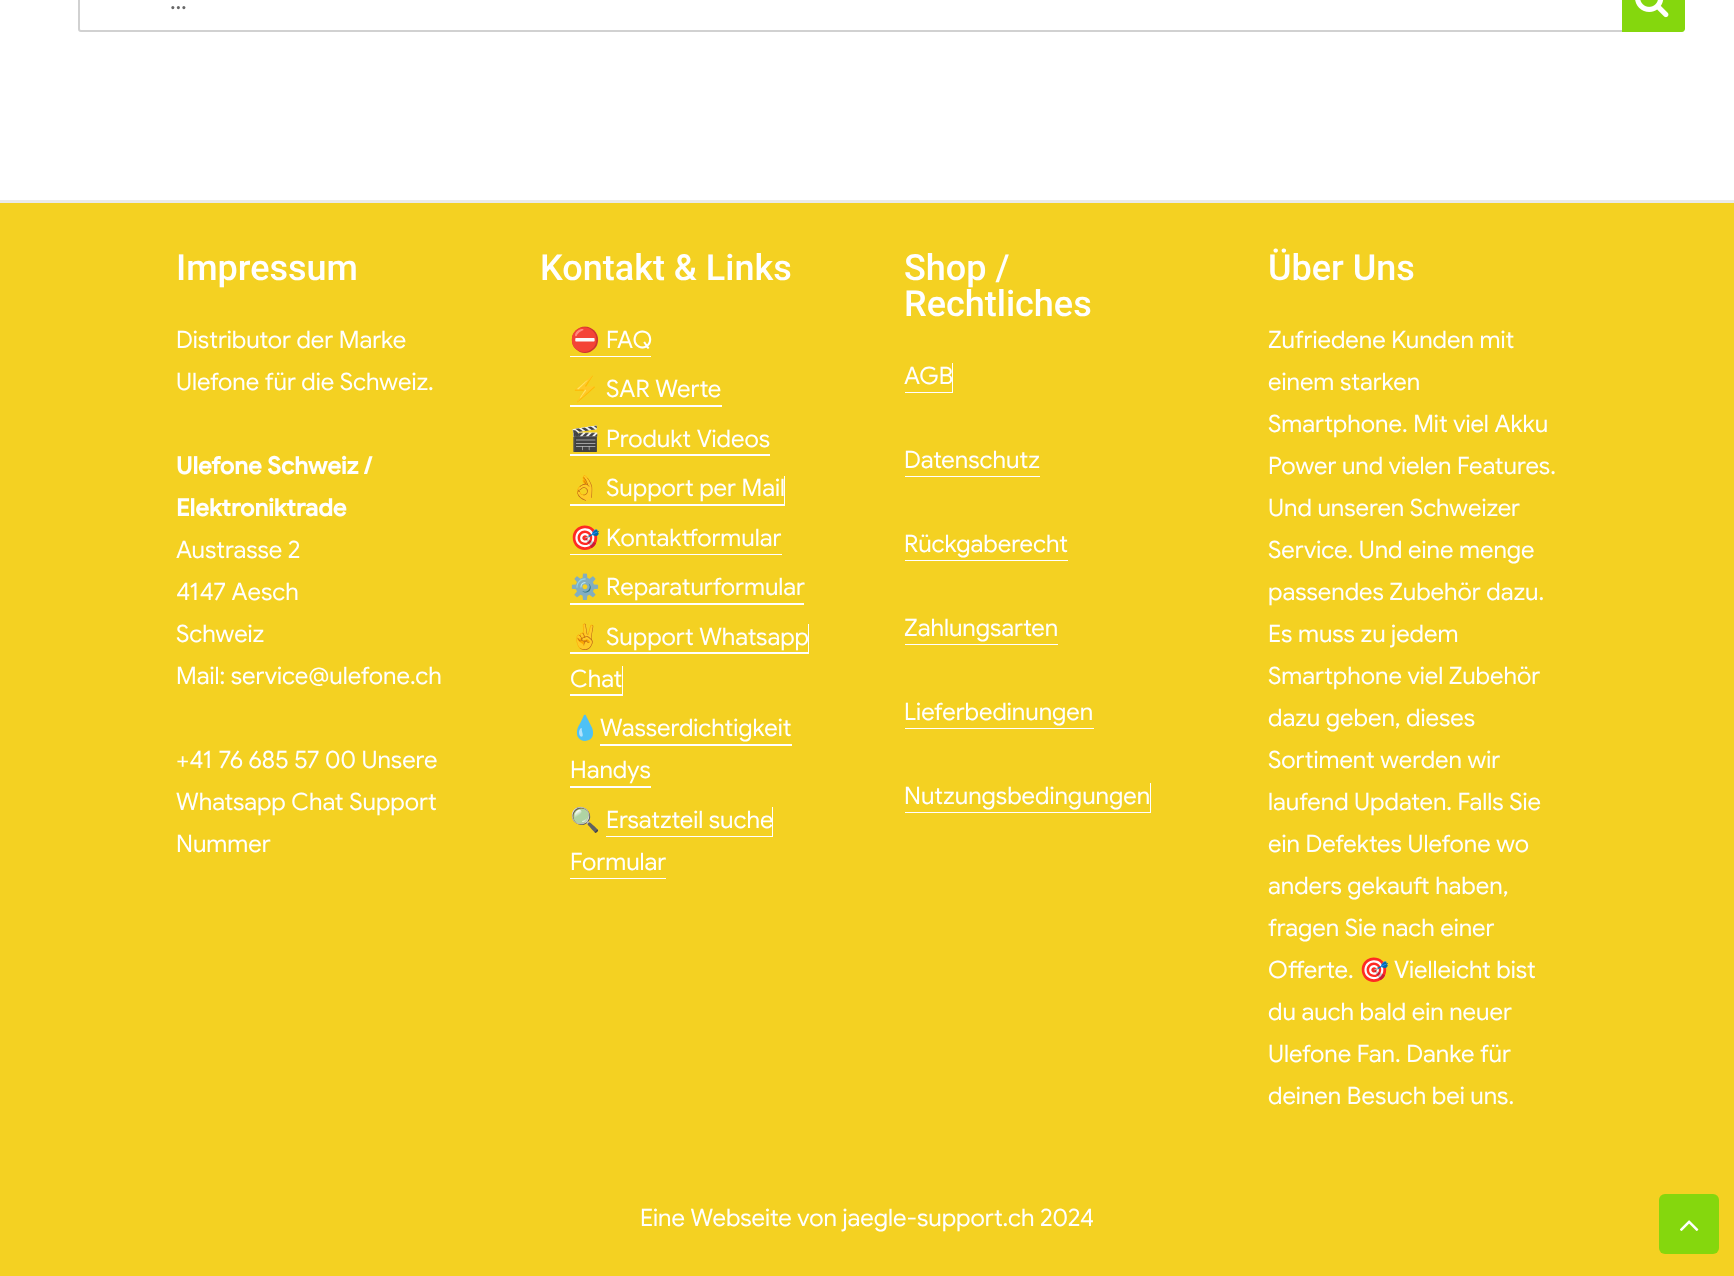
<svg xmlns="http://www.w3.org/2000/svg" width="1734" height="1276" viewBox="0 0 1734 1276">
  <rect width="100%" height="100%" fill="#ffffff"/>
  <path d="M81-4H1655V31H81C80 31 79 30 79 29V-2C79-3 80-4 81-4Z" fill="none" stroke="#d1d1d1" stroke-width="2"/>
  <text x="170" y="9" font-family="Google Sans" font-size="24" fill="#686868">…</text>
  <path d="M1622-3H1685V29C1685 30.5 1683.5 32 1682 32H1622Z" fill="#85d70d"/>
  <image x="1635" y="0" width="34" height="18" href="img1.png"/>
  <rect x="0" y="203" width="1734" height="1073" fill="#f4d122"/>
  <rect x="0" y="200" width="1734" height="3" fill="#eaeaea"/>
  <text x="176" y="280" font-family="Roboto" font-size="36" font-weight="500" fill="#ffffff">Impressum</text>
  <text x="176" y="348" font-family="Google Sans" font-size="24" fill="#ffffff">Distributor der Marke</text>
  <text x="176" y="390" font-family="Google Sans" font-size="24" fill="#ffffff">Ulefone für die Schweiz.</text>
  <text x="176" y="474" font-family="Google Sans" font-size="24" font-weight="bold" fill="#ffffff">Ulefone Schweiz /</text>
  <text x="176" y="516" font-family="Google Sans" font-size="24" font-weight="bold" fill="#ffffff">Elektroniktrade</text>
  <text x="176" y="558" font-family="Google Sans" font-size="24" fill="#ffffff">Austrasse 2</text>
  <text x="176" y="600" font-family="Google Sans" font-size="24" fill="#ffffff">4147 Aesch</text>
  <text x="176" y="642" font-family="Google Sans" font-size="24" fill="#ffffff">Schweiz</text>
  <text x="176" y="684" font-family="Google Sans" font-size="24" fill="#ffffff">Mail: service@ulefone.ch</text>
  <text x="176" y="768" font-family="Google Sans" font-size="24" fill="#ffffff">+41 76 685 57 00 Unsere</text>
  <text x="176" y="810" font-family="Google Sans" font-size="24" fill="#ffffff">Whatsapp Chat Support</text>
  <text x="176" y="852" font-family="Google Sans" font-size="24" fill="#ffffff">Nummer</text>
  <text x="540" y="280" font-family="Roboto" font-size="36" font-weight="500" fill="#ffffff">Kontakt &amp; Links</text>
  <text x="570" y="348" font-family="Noto Color Emoji" font-size="24" fill="#ffffff">⛔</text>
  <text x="606" y="348" font-family="Google Sans" font-size="24" fill="#ffffff">FAQ</text>
  <rect x="570" y="356" width="81" height="1" fill="#ffffff"/>
  <text x="570" y="397" font-family="Noto Color Emoji" font-size="24" fill="#ffffff">⚡</text>
  <path d="M570 405V407H722V377V405Z" fill="#ffffff"/>
  <text x="606" y="397" font-family="Google Sans" font-size="24" fill="#ffffff">SAR Werte</text>
  <text x="570" y="447" font-family="Noto Color Emoji" font-size="24" fill="#ffffff">🎬</text>
  <path d="M570 454V456H770V426V454Z" fill="#ffffff"/>
  <text x="606" y="447" font-family="Google Sans" font-size="24" fill="#ffffff">Produkt Videos</text>
  <path d="M570 504V506H785V476H784V504Z" fill="#ffffff"/>
  <text x="570" y="496" font-family="Noto Color Emoji" font-size="24" fill="#ffffff">👌</text>
  <text x="606" y="496" font-family="Google Sans" font-size="24" fill="#ffffff">Support per Mail</text>
  <text x="570" y="546" font-family="Noto Color Emoji" font-size="24" fill="#ffffff">🎯</text>
  <path d="M570 554V555H782V525V554Z" fill="#ffffff"/>
  <text x="606" y="546" font-family="Google Sans" font-size="24" fill="#ffffff">Kontaktformular</text>
  <text x="570" y="595" font-family="Noto Color Emoji" font-size="24" fill="#ffffff">⚙️</text>
  <text x="606" y="595" font-family="Google Sans" font-size="24" fill="#ffffff">Reparaturformular</text>
  <rect x="570" y="603" width="234" height="2" fill="#ffffff"/>
  <path d="M570 652V654H809V624H808V652Z" fill="#ffffff"/>
  <text x="570" y="645" font-family="Noto Color Emoji" font-size="24" fill="#ffffff">✌</text>
  <text x="606" y="645" font-family="Google Sans" font-size="24" fill="#ffffff">Support Whatsapp</text>
  <path d="M570 694V696H623V666H622V694Z" fill="#ffffff"/>
  <text x="570" y="687" font-family="Google Sans" font-size="24" fill="#ffffff">Chat</text>
  <text x="570" y="736" font-family="Noto Color Emoji" font-size="24" fill="#ffffff">💧</text>
  <text x="600" y="736" font-family="Google Sans" font-size="24" fill="#ffffff">Wasserdichtigkeit</text>
  <rect x="600" y="744" width="192" height="2" fill="#ffffff"/>
  <text x="570" y="778" font-family="Google Sans" font-size="24" fill="#ffffff">Handys</text>
  <rect x="570" y="786" width="81" height="2" fill="#ffffff"/>
  <text x="570" y="828" font-family="Noto Color Emoji" font-size="24" fill="#ffffff">🔍</text>
  <path d="M606 836V837H773V807H772V836Z" fill="#ffffff"/>
  <text x="606" y="828" font-family="Google Sans" font-size="24" fill="#ffffff">Ersatzteil suche</text>
  <text x="570" y="870" font-family="Google Sans" font-size="24" fill="#ffffff">Formular</text>
  <rect x="570" y="878" width="96" height="1" fill="#ffffff"/>
  <text x="904" y="280" font-family="Roboto" font-size="36" font-weight="500" fill="#ffffff">Shop /</text>
  <text x="904" y="316" font-family="Roboto" font-size="36" font-weight="500" fill="#ffffff">Rechtliches</text>
  <path d="M905 392V393H953V363H952V392Z" fill="#ffffff"/>
  <text x="904" y="384" font-family="Google Sans" font-size="24" fill="#ffffff">AGB</text>
  <text x="904" y="468" font-family="Google Sans" font-size="24" fill="#ffffff">Datenschutz</text>
  <path d="M905 476V477H1040V447V476Z" fill="#ffffff"/>
  <text x="904" y="552" font-family="Google Sans" font-size="24" fill="#ffffff">Rückgaberecht</text>
  <rect x="905" y="560" width="163" height="1" fill="#ffffff"/>
  <text x="904" y="636" font-family="Google Sans" font-size="24" fill="#ffffff">Zahlungsarten</text>
  <path d="M905 644V645H1058V615V644Z" fill="#ffffff"/>
  <text x="904" y="720" font-family="Google Sans" font-size="24" fill="#ffffff">Lieferbedinungen</text>
  <path d="M905 728V729H1094V699V728Z" fill="#ffffff"/>
  <path d="M905 812V813H1151V783H1150V812Z" fill="#ffffff"/>
  <text x="904" y="804" font-family="Google Sans" font-size="24" fill="#ffffff">Nutzungsbedingungen</text>
  <text x="1268" y="280" font-family="Roboto" font-size="36" font-weight="500" fill="#ffffff">Über Uns</text>
  <text x="1268" y="348" font-family="Google Sans" font-size="24" fill="#ffffff">Zufriedene Kunden mit</text>
  <text x="1268" y="390" font-family="Google Sans" font-size="24" fill="#ffffff">einem starken</text>
  <text x="1268" y="432" font-family="Google Sans" font-size="24" fill="#ffffff">Smartphone. Mit viel Akku</text>
  <text x="1268" y="474" font-family="Google Sans" font-size="24" fill="#ffffff">Power und vielen Features.</text>
  <text x="1268" y="516" font-family="Google Sans" font-size="24" fill="#ffffff">Und unseren Schweizer</text>
  <text x="1268" y="558" font-family="Google Sans" font-size="24" fill="#ffffff">Service. Und eine menge</text>
  <text x="1268" y="600" font-family="Google Sans" font-size="24" fill="#ffffff">passendes Zubehör dazu.</text>
  <text x="1268" y="642" font-family="Google Sans" font-size="24" fill="#ffffff">Es muss zu jedem</text>
  <text x="1268" y="684" font-family="Google Sans" font-size="24" fill="#ffffff">Smartphone viel Zubehör</text>
  <text x="1268" y="726" font-family="Google Sans" font-size="24" fill="#ffffff">dazu geben, dieses</text>
  <text x="1268" y="768" font-family="Google Sans" font-size="24" fill="#ffffff">Sortiment werden wir</text>
  <text x="1268" y="810" font-family="Google Sans" font-size="24" fill="#ffffff">laufend Updaten. Falls Sie</text>
  <text x="1268" y="852" font-family="Google Sans" font-size="24" fill="#ffffff">ein Defektes Ulefone wo</text>
  <text x="1268" y="894" font-family="Google Sans" font-size="24" fill="#ffffff">anders gekauft haben,</text>
  <text x="1268" y="936" font-family="Google Sans" font-size="24" fill="#ffffff">fragen Sie nach einer</text>
  <text x="1268" y="978" font-family="Google Sans" font-size="24" fill="#ffffff">Offerte.</text>
  <text x="1359" y="978" font-family="Noto Color Emoji" font-size="24" fill="#ffffff">🎯</text>
  <text x="1394" y="978" font-family="Google Sans" font-size="24" fill="#ffffff">Vielleicht bist</text>
  <text x="1268" y="1020" font-family="Google Sans" font-size="24" fill="#ffffff">du auch bald ein neuer</text>
  <text x="1268" y="1062" font-family="Google Sans" font-size="24" fill="#ffffff">Ulefone Fan. Danke für</text>
  <text x="1268" y="1104" font-family="Google Sans" font-size="24" fill="#ffffff">deinen Besuch bei uns.</text>
  <text x="640" y="1226" font-family="Google Sans" font-size="24" fill="#ffffff">Eine Webseite von jaegle-support.ch 2024</text>
  <rect x="1659" y="1194" width="60" height="60" rx="6" fill="#85d70d"/>
  <image x="1680" y="1220" width="19" height="11" href="img2.png"/>
</svg>
